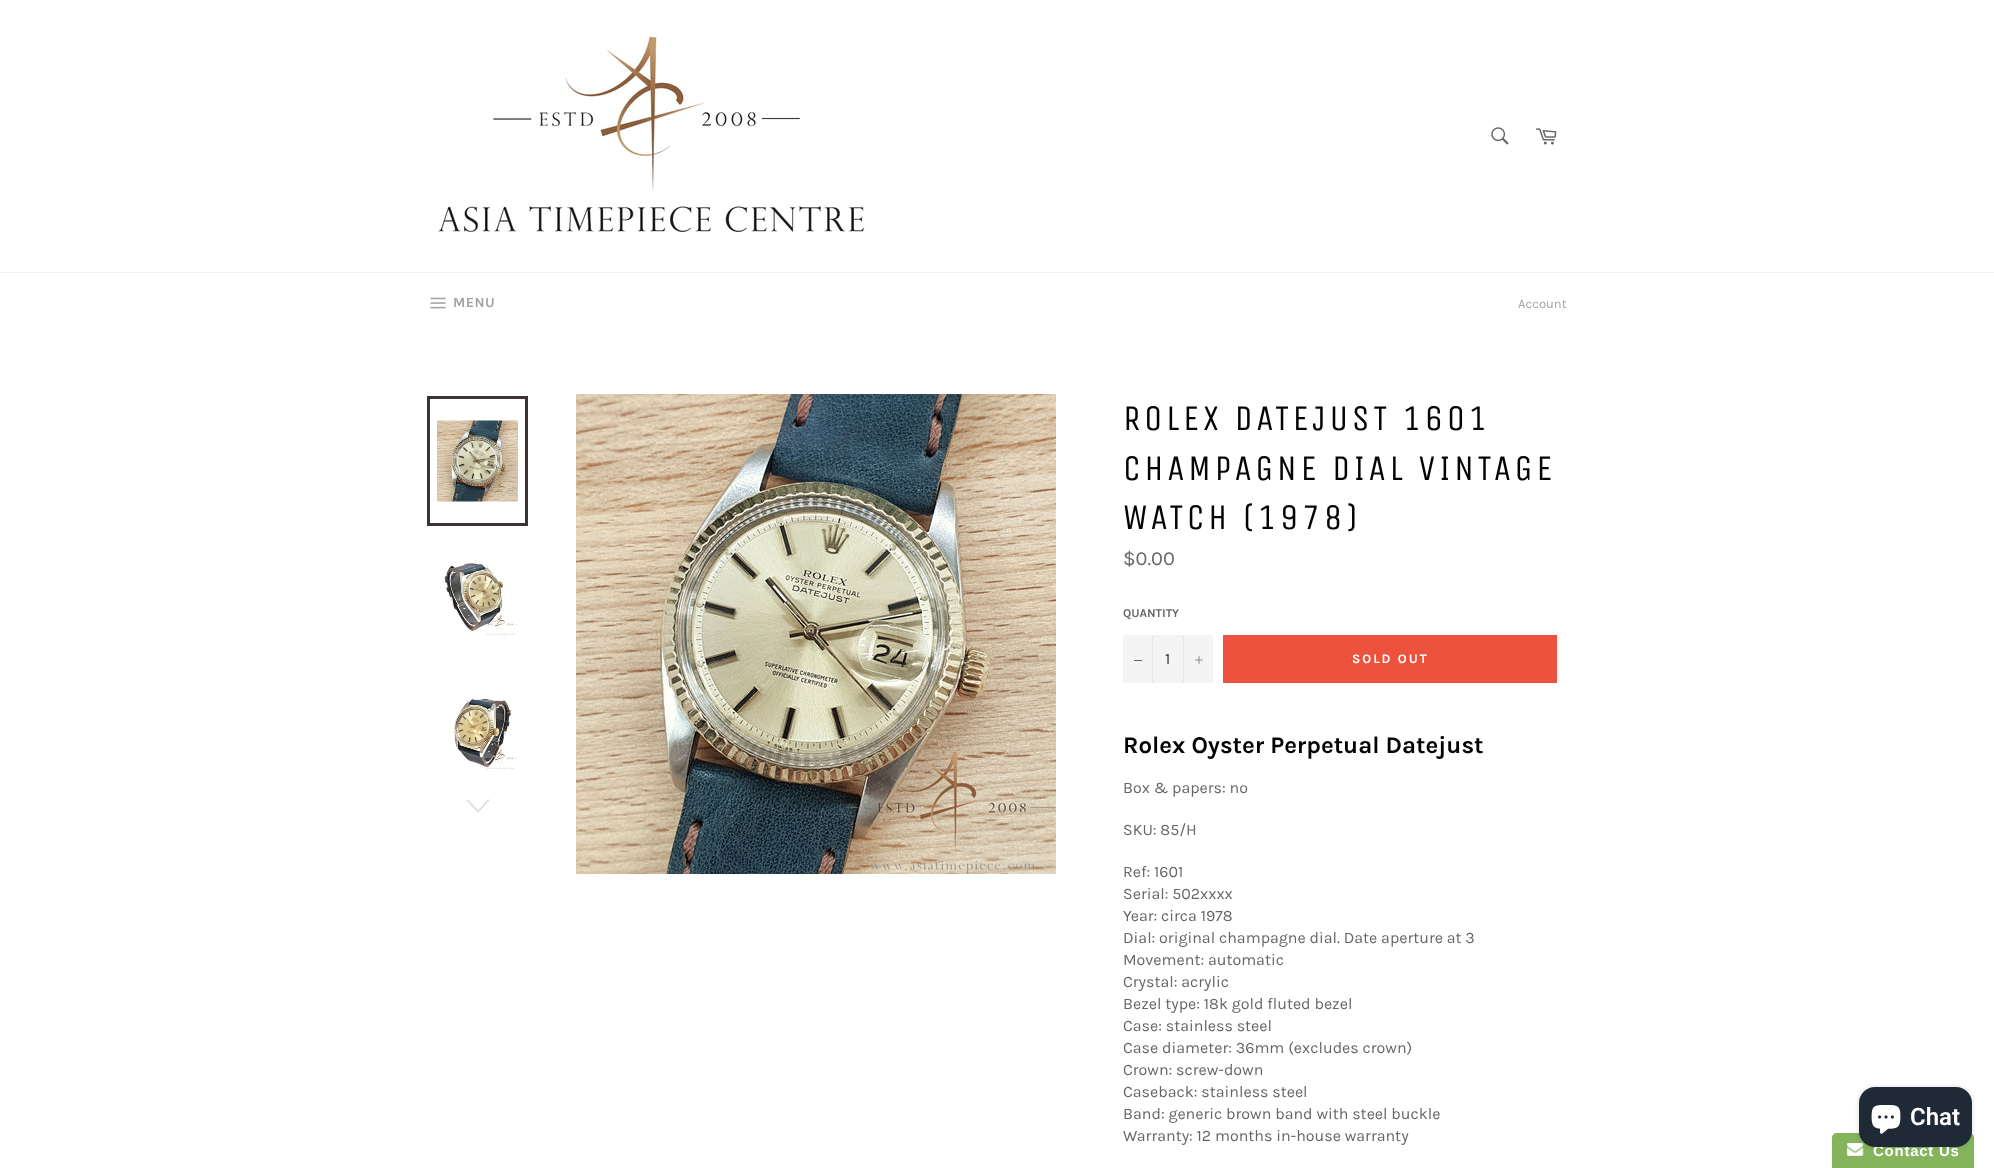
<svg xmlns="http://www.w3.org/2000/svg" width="1994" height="1168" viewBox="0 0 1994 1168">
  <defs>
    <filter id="blur1" x="-50%" y="-200%" width="200%" height="500%"><feGaussianBlur stdDeviation="2.5"/></filter>
  </defs>
  <rect width="100%" height="100%" fill="#ffffff"/>
  <image x="438" y="35" width="429" height="197" href="img1.png"/>
  <image x="1491" y="127" width="18" height="18" href="img2.png"/>
  <image x="1535" y="128" width="22" height="17" href="img3.png"/>
  <rect x="0" y="272" width="1994" height="1" fill="#f2f2f2"/>
  <image x="430" y="297" width="16" height="12" href="img4.png"/>
  <text x="453" y="307" font-family="Karla" font-size="14" font-weight="bold" letter-spacing="0.5" fill="#a3a3a3">MENU</text>
  <text x="1518" y="308" font-family="Karla" font-size="13" fill="#a3a3a3">Account</text>
  <image x="437" y="420" width="81" height="82" href="img5.png"/>
  <rect x="428.5" y="397.5" width="98" height="127" fill="none" stroke="#3b3433" stroke-width="3"/>
  <image x="444" y="563" width="74" height="73" href="img6.png"/>
  <image x="453" y="699" width="65" height="71" href="img7.png"/>
  <path d="M488.5 799L489.5 800.5L478 813L466.5 800.5L467.5 799L478 810Z" fill="#e0e0e0"/>
  <image x="576" y="394" width="480" height="480" href="img8.png"/>
  <text x="1123" y="430" font-family="Unica One" font-size="36" letter-spacing="3.6" fill="#030303">ROLEX DATEJUST 1601</text>
  <text x="1123" y="480" font-family="Unica One" font-size="36" letter-spacing="3.6" fill="#030303">CHAMPAGNE DIAL VINTAGE</text>
  <text x="1123" y="529" font-family="Unica One" font-size="36" letter-spacing="3.6" fill="#030303">WATCH (1978)</text>
  <text x="1123" y="565" font-family="Karla" font-size="20" fill="#666666">$0.00</text>
  <text x="1123" y="617" font-family="Karla" font-size="12" font-weight="bold" fill="#666666">QUANTITY</text>
  <rect x="1123" y="635" width="90" height="48" fill="#f4f4f4"/>
  <rect x="1152" y="635" width="1" height="48" fill="#e7e7e7"/>
  <rect x="1134" y="660" width="8" height="1" fill="#666666"/>
  <text x="1165" y="664" font-family="Karla" font-size="16" fill="#333333">1</text>
  <rect x="1183" y="635" width="1" height="48" fill="#e7e7e7"/>
  <image x="1195" y="656" width="8" height="8" href="img9.png"/>
  <rect x="1223" y="635" width="334" height="48" fill="#ec523e"/>
  <text x="1352" y="663" font-family="Karla" font-size="13" font-weight="bold" letter-spacing="2" fill="#ffffff">SOLD OUT</text>
  <text x="1123" y="753" font-family="Karla" font-size="24" font-weight="bold" fill="#030303">Rolex Oyster Perpetual Datejust</text>
  <text x="1123" y="793" font-family="Karla" font-size="16" fill="#666666">Box &amp; papers: no</text>
  <text x="1123" y="835" font-family="Karla" font-size="16" fill="#666666">SKU: 85/H</text>
  <text x="1123" y="877" font-family="Karla" font-size="16" fill="#666666">Ref: 1601</text>
  <text x="1123" y="899" font-family="Karla" font-size="16" fill="#666666">Serial: 502xxxx</text>
  <text x="1123" y="921" font-family="Karla" font-size="16" fill="#666666">Year: circa 1978</text>
  <text x="1123" y="943" font-family="Karla" font-size="16" fill="#666666">Dial: original champagne dial. Date aperture at 3</text>
  <text x="1123" y="965" font-family="Karla" font-size="16" fill="#666666">Movement: automatic</text>
  <text x="1123" y="987" font-family="Karla" font-size="16" fill="#666666">Crystal: acrylic</text>
  <text x="1123" y="1009" font-family="Karla" font-size="16" fill="#666666">Bezel type: 18k gold fluted bezel</text>
  <text x="1123" y="1031" font-family="Karla" font-size="16" fill="#666666">Case: stainless steel</text>
  <text x="1123" y="1053" font-family="Karla" font-size="16" fill="#666666">Case diameter: 36mm (excludes crown)</text>
  <text x="1123" y="1075" font-family="Karla" font-size="16" fill="#666666">Crown: screw-down</text>
  <text x="1123" y="1097" font-family="Karla" font-size="16" fill="#666666">Caseback: stainless steel</text>
  <text x="1123" y="1119" font-family="Karla" font-size="16" fill="#666666">Band: generic brown band with steel buckle</text>
  <text x="1123" y="1141" font-family="Karla" font-size="16" fill="#666666">Warranty: 12 months in-house warranty</text>
  <path d="M1837 1133H1969C1972 1133 1974 1135 1974 1138V1168H1832V1138C1832 1135 1834 1133 1837 1133Z" fill="#84b45b"/>
  <image x="1846" y="1143" width="18" height="13" href="img11.png"/>
  <rect x="1859" y="1087" width="113" height="60" rx="16" fill="#000000" fill-opacity="0.15" filter="url(#blur1)"/>
  <text x="1873" y="1156" font-family="Liberation Sans" font-size="15" font-weight="bold" letter-spacing="0.75" fill="#ffffff">Contact Us</text>
  <rect x="1859" y="1087" width="113" height="60" rx="16" fill="#202a36"/>
  <image x="1871" y="1105" width="30" height="29" href="img10.png"/>
  <text x="1910" y="1125" font-family="Roboto" font-size="24" font-weight="600" fill="#ffffff">Chat</text>
</svg>
